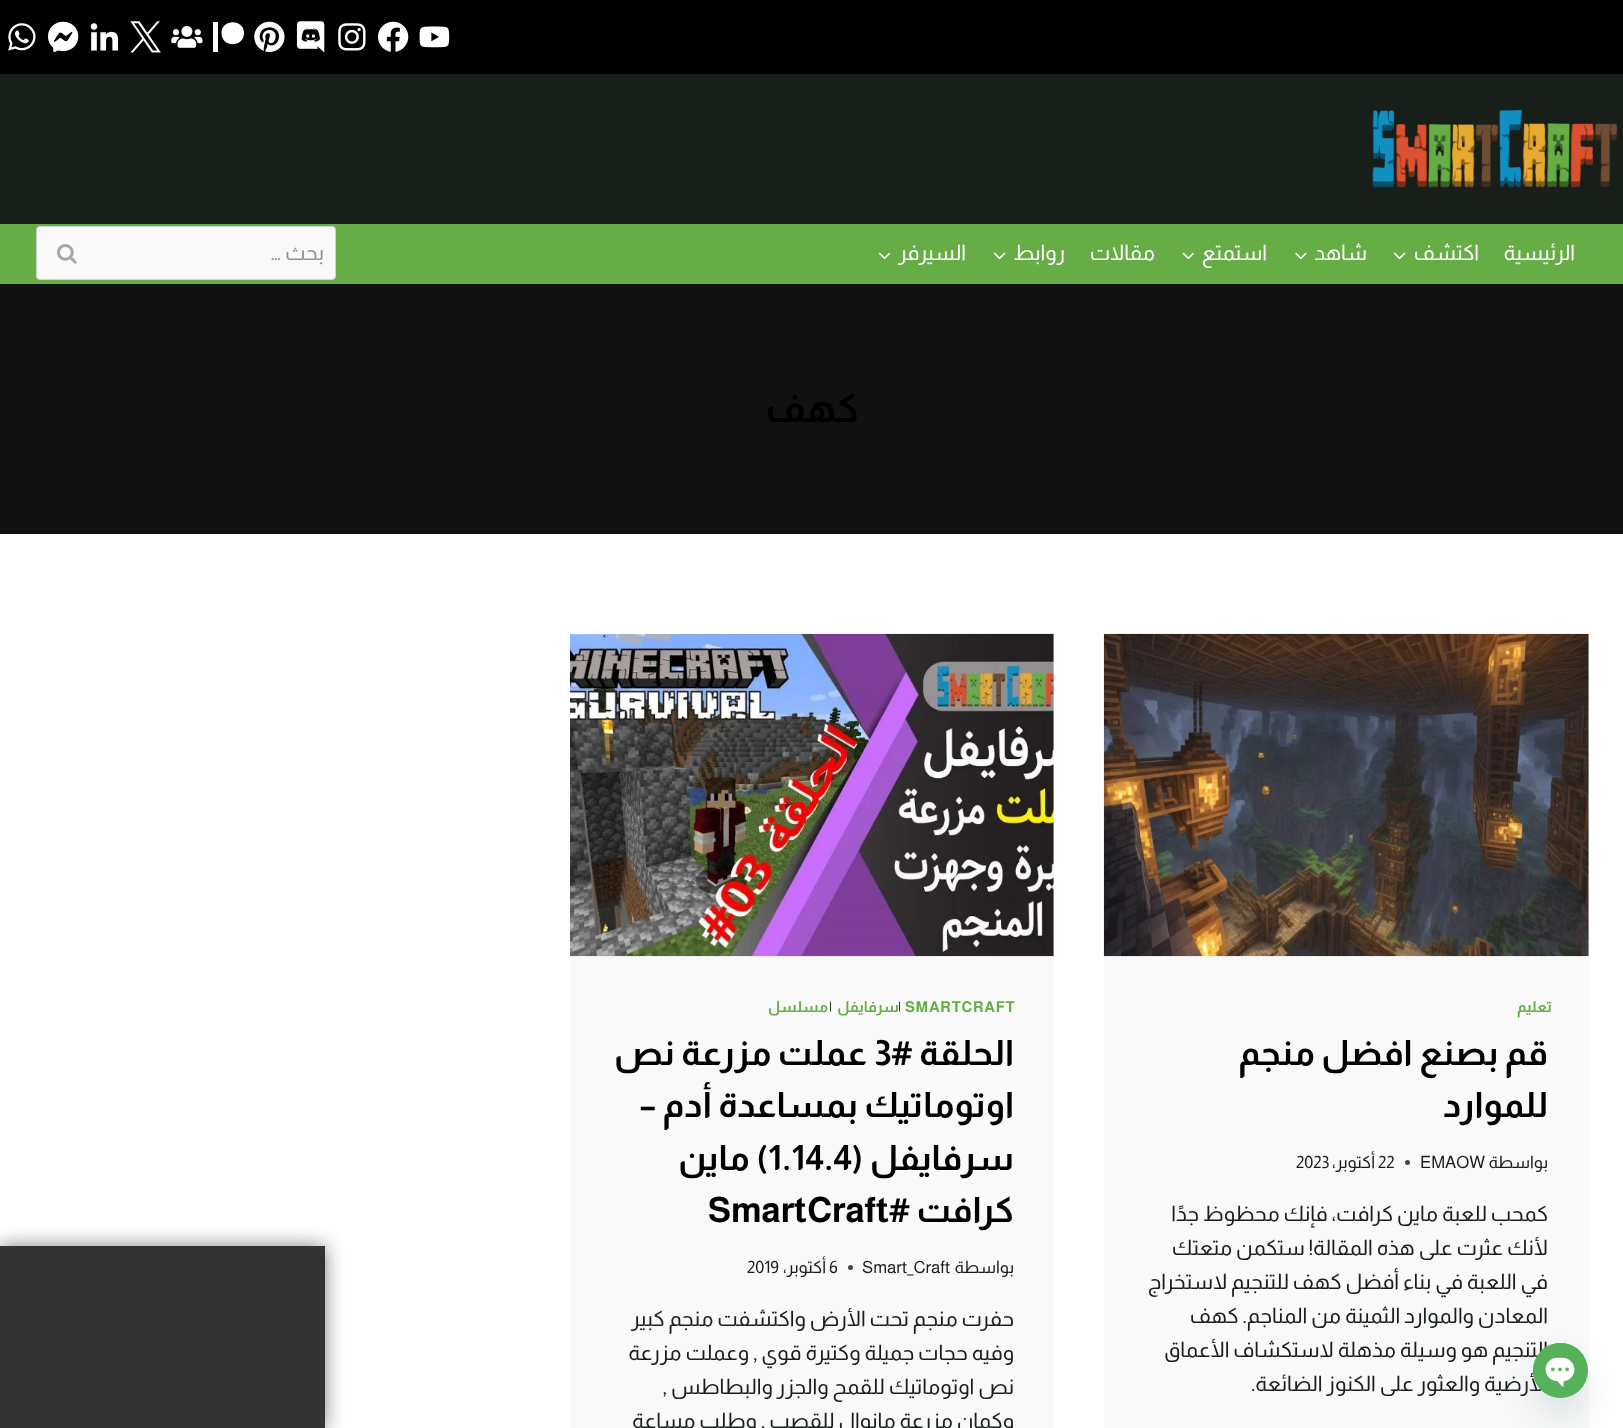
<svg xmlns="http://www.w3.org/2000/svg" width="1623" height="1428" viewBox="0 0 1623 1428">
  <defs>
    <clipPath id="clip1"><rect x="213" y="21" width="31" height="32"/></clipPath>
    <clipPath id="clip2"><path d="M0 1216H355V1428H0ZM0 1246H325V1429H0Z" clip-rule="evenodd"/></clipPath>
    <filter id="blur1" x="-50%" y="-200%" width="200%" height="500%"><feGaussianBlur stdDeviation="9.5"/></filter>
    <filter id="blur2" x="-50%" y="-200%" width="200%" height="500%"><feGaussianBlur stdDeviation="15"/></filter>
  </defs>
  <rect width="100%" height="100%" fill="#ffffff"/>
  <rect x="0" y="0" width="1623" height="74" fill="#000000"/>
  <image x="419" y="26" width="31" height="22" href="img1.png"/>
  <image x="378" y="21" width="31" height="31" href="img2.png"/>
  <image x="338" y="23" width="28" height="28" href="img3.png"/>
  <image x="296" y="21" width="29" height="32" href="img4.png"/>
  <image x="254" y="21" width="31" height="31" href="img5.png"/>
  <g clip-path="url(#clip1)">
    <path d="M244 33C244 48 221.5 48 221.5 33C221.5 18.5 244 18.5 244 33ZM212.5 52H218V22H212.5Z" fill="#ffffff"/>
  </g>
  <image x="171" y="25" width="32" height="23" href="img6.png"/>
  <image x="130" y="21" width="31" height="32" href="img7.png"/>
  <image x="90" y="23" width="29" height="28" href="img8.png"/>
  <image x="48" y="21" width="31" height="31" href="img9.png"/>
  <image x="8" y="23" width="28" height="28" href="img10.png"/>
  <rect x="0" y="74" width="1623" height="150" fill="#181e19"/>
  <image x="1372" y="109" width="246" height="79" href="img11.png"/>
  <rect x="0" y="224" width="1623" height="60" fill="#67ad46"/>
  <text x="1575" y="260" font-family="Almarai" font-size="21.25" direction="rtl" fill="#ffffff">الرئيسية</text>
  <text x="1479" y="260" font-family="Almarai" font-size="21.25" direction="rtl" fill="#ffffff">اكتشف</text>
  <image x="1394" y="252" width="12" height="8" href="img12.png"/>
  <text x="1367" y="260" font-family="Almarai" font-size="21.25" direction="rtl" fill="#ffffff">شاهد</text>
  <image x="1295" y="252" width="12" height="8" href="img13.png"/>
  <text x="1267" y="260" font-family="Almarai" font-size="21.25" direction="rtl" fill="#ffffff">استمتع</text>
  <image x="1182" y="252" width="12" height="8" href="img14.png"/>
  <text x="1155" y="260" font-family="Almarai" font-size="21.25" direction="rtl" fill="#ffffff">مقالات</text>
  <text x="1065" y="260" font-family="Almarai" font-size="21.25" direction="rtl" fill="#ffffff">روابط</text>
  <image x="994" y="252" width="12" height="8" href="img12.png"/>
  <text x="966" y="260" font-family="Almarai" font-size="21.25" direction="rtl" fill="#ffffff">السيرفر</text>
  <image x="879" y="252" width="12" height="8" href="img12.png"/>
  <rect x="36.5" y="226.5" width="299" height="53" rx="3.5" fill="#f9f9f9" stroke="#cbd5e0"/>
  <text x="324" y="260" font-family="Almarai" font-size="21.25" direction="rtl" fill="#8f9790">بحث …</text>
  <image x="57" y="244" width="20" height="20" href="img15.png"/>
  <rect x="0" y="284" width="1623" height="250" fill="#111111"/>
  <text x="859" y="422" font-family="Almarai" font-size="40" font-weight="bold" direction="rtl" fill="#000000">كهف</text>
  <rect x="1104" y="634" width="485" height="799" rx="5" fill="#f9f9f9"/>
  <image x="1103" y="633" width="486" height="324" href="img16.png"/>
  <text x="1552" y="1012" font-family="Almarai" font-size="15" font-weight="bold" letter-spacing="0.75" direction="rtl" fill="#67ad46">تعليم</text>
  <text x="1548" y="1065" font-family="Almarai" font-size="35" font-weight="bold" direction="rtl" fill="#000000">قم بصنع افضل منجم</text>
  <text x="1548" y="1117" font-family="Almarai" font-size="35" font-weight="bold" direction="rtl" fill="#000000">للموارد</text>
  <text x="1548" y="1168" font-family="Almarai" font-size="17" direction="rtl" fill="#181e19">بواسطة</text>
  <text x="1420" y="1168" font-family="Almarai" font-size="17" fill="#181e19">EMAOW</text>
  <circle cx="1407.5" cy="1162.5" r="2.5" fill="#454a46"/>
  <text x="1378" y="1168" font-family="Almarai" font-size="17" fill="#181e19">22</text>
  <text x="1375" y="1168" font-family="Almarai" font-size="17" direction="rtl" fill="#181e19">أكتوبر،</text>
  <text x="1296" y="1168" font-family="Almarai" font-size="17" fill="#181e19">2023</text>
  <text x="1548" y="1221" font-family="Almarai" font-size="21.25" direction="rtl" fill="#181e19">كمحب للعبة ماين كرافت، فإنك محظوظ جدًا</text>
  <text x="1548" y="1255" font-family="Almarai" font-size="21.25" direction="rtl" fill="#181e19">لأنك عثرت على هذه المقالة! ستكمن متعتك</text>
  <text x="1548" y="1289" font-family="Almarai" font-size="21.25" direction="rtl" fill="#181e19">في اللعبة في بناء أفضل كهف للتنجيم لاستخراج</text>
  <text x="1548" y="1323" font-family="Almarai" font-size="21.25" direction="rtl" fill="#181e19">المعادن والموارد الثمينة من المناجم. كهف</text>
  <text x="1548" y="1357" font-family="Almarai" font-size="21.25" direction="rtl" fill="#181e19">التنجيم هو وسيلة مذهلة لاستكشاف الأعماق</text>
  <text x="1548" y="1391" font-family="Almarai" font-size="21.25" direction="rtl" fill="#181e19">الأرضية والعثور على الكنوز الضائعة.</text>
  <rect x="570" y="634" width="484" height="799" rx="5" fill="#f9f9f9"/>
  <image x="570" y="633" width="484" height="324" href="img17.png"/>
  <text x="905" y="1012" font-family="Almarai" font-size="15" font-weight="bold" letter-spacing="0.75" fill="#67ad46">SMARTCRAFT</text>
  <text x="898" y="1012" font-family="Almarai" font-size="15" letter-spacing="0.75" fill="#181e19">|</text>
  <text x="899" y="1012" font-family="Almarai" font-size="15" font-weight="bold" letter-spacing="0.75" direction="rtl" fill="#67ad46">سرفايفل</text>
  <text x="829" y="1012" font-family="Almarai" font-size="15" letter-spacing="0.75" fill="#181e19">|</text>
  <text x="828" y="1012" font-family="Almarai" font-size="15" font-weight="bold" letter-spacing="0.75" direction="rtl" fill="#67ad46">مسلسل</text>
  <text x="1014" y="1065" font-family="Almarai" font-size="35" font-weight="bold" direction="rtl" fill="#000000">الحلقة #</text>
  <text x="874" y="1065" font-family="Almarai" font-size="35" font-weight="bold" fill="#000000">3</text>
  <text x="867" y="1065" font-family="Almarai" font-size="35" font-weight="bold" direction="rtl" fill="#000000">عملت مزرعة نص</text>
  <text x="1014" y="1117" font-family="Almarai" font-size="35" font-weight="bold" direction="rtl" fill="#000000">اوتوماتيك بمساعدة أدم –</text>
  <text x="1014" y="1170" font-family="Almarai" font-size="35" font-weight="bold" direction="rtl" fill="#000000">سرفايفل (</text>
  <text x="768" y="1170" font-family="Almarai" font-size="35" font-weight="bold" fill="#000000">1.14.4</text>
  <text x="768" y="1170" font-family="Almarai" font-size="35" font-weight="bold" direction="rtl" fill="#000000">) ماين</text>
  <text x="1014" y="1222" font-family="Almarai" font-size="35" font-weight="bold" direction="rtl" fill="#000000">كرافت #</text>
  <text x="708" y="1222" font-family="Almarai" font-size="35" font-weight="bold" fill="#000000">SmartCraft</text>
  <text x="1014" y="1273" font-family="Almarai" font-size="17" direction="rtl" fill="#181e19">بواسطة</text>
  <text x="862" y="1273" font-family="Almarai" font-size="17" fill="#181e19">Smart_Craft</text>
  <circle cx="850.5" cy="1267.5" r="2.5" fill="#454a46"/>
  <text x="829" y="1273" font-family="Almarai" font-size="17" fill="#181e19">6</text>
  <text x="826" y="1273" font-family="Almarai" font-size="17" direction="rtl" fill="#181e19">أكتوبر،</text>
  <text x="747" y="1273" font-family="Almarai" font-size="17" fill="#181e19">2019</text>
  <text x="1014" y="1326" font-family="Almarai" font-size="21.25" direction="rtl" fill="#181e19">حفرت منجم تحت الأرض واكتشفت منجم كبير</text>
  <text x="1014" y="1360" font-family="Almarai" font-size="21.25" direction="rtl" fill="#181e19">وفيه حجات جميلة وكتيرة قوي , وعملت مزرعة</text>
  <text x="1014" y="1394" font-family="Almarai" font-size="21.25" direction="rtl" fill="#181e19">نص اوتوماتيك للقمح والجزر والبطاطس ,</text>
  <text x="1014" y="1428" font-family="Almarai" font-size="21.25" direction="rtl" fill="#181e19">وكمان مزرعة مانوال للقصب , وطلب مساعة</text>
  <g clip-path="url(#clip2)">
    <rect x="0" y="1246" width="325" height="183" fill="#000000" fill-opacity="0.5" filter="url(#blur1)"/>
  </g>
  <rect x="0" y="1246" width="325" height="182" fill="#000000" fill-opacity="0.8"/>
  <rect x="1533" y="1363" width="55" height="55" rx="27.5" fill="#49687e" fill-opacity="0.16" filter="url(#blur2)"/>
  <circle cx="1560.5" cy="1370.5" r="27.5" fill="#56b259"/>
  <image x="1533" y="1343" width="53" height="53" href="img18.png"/>
</svg>
